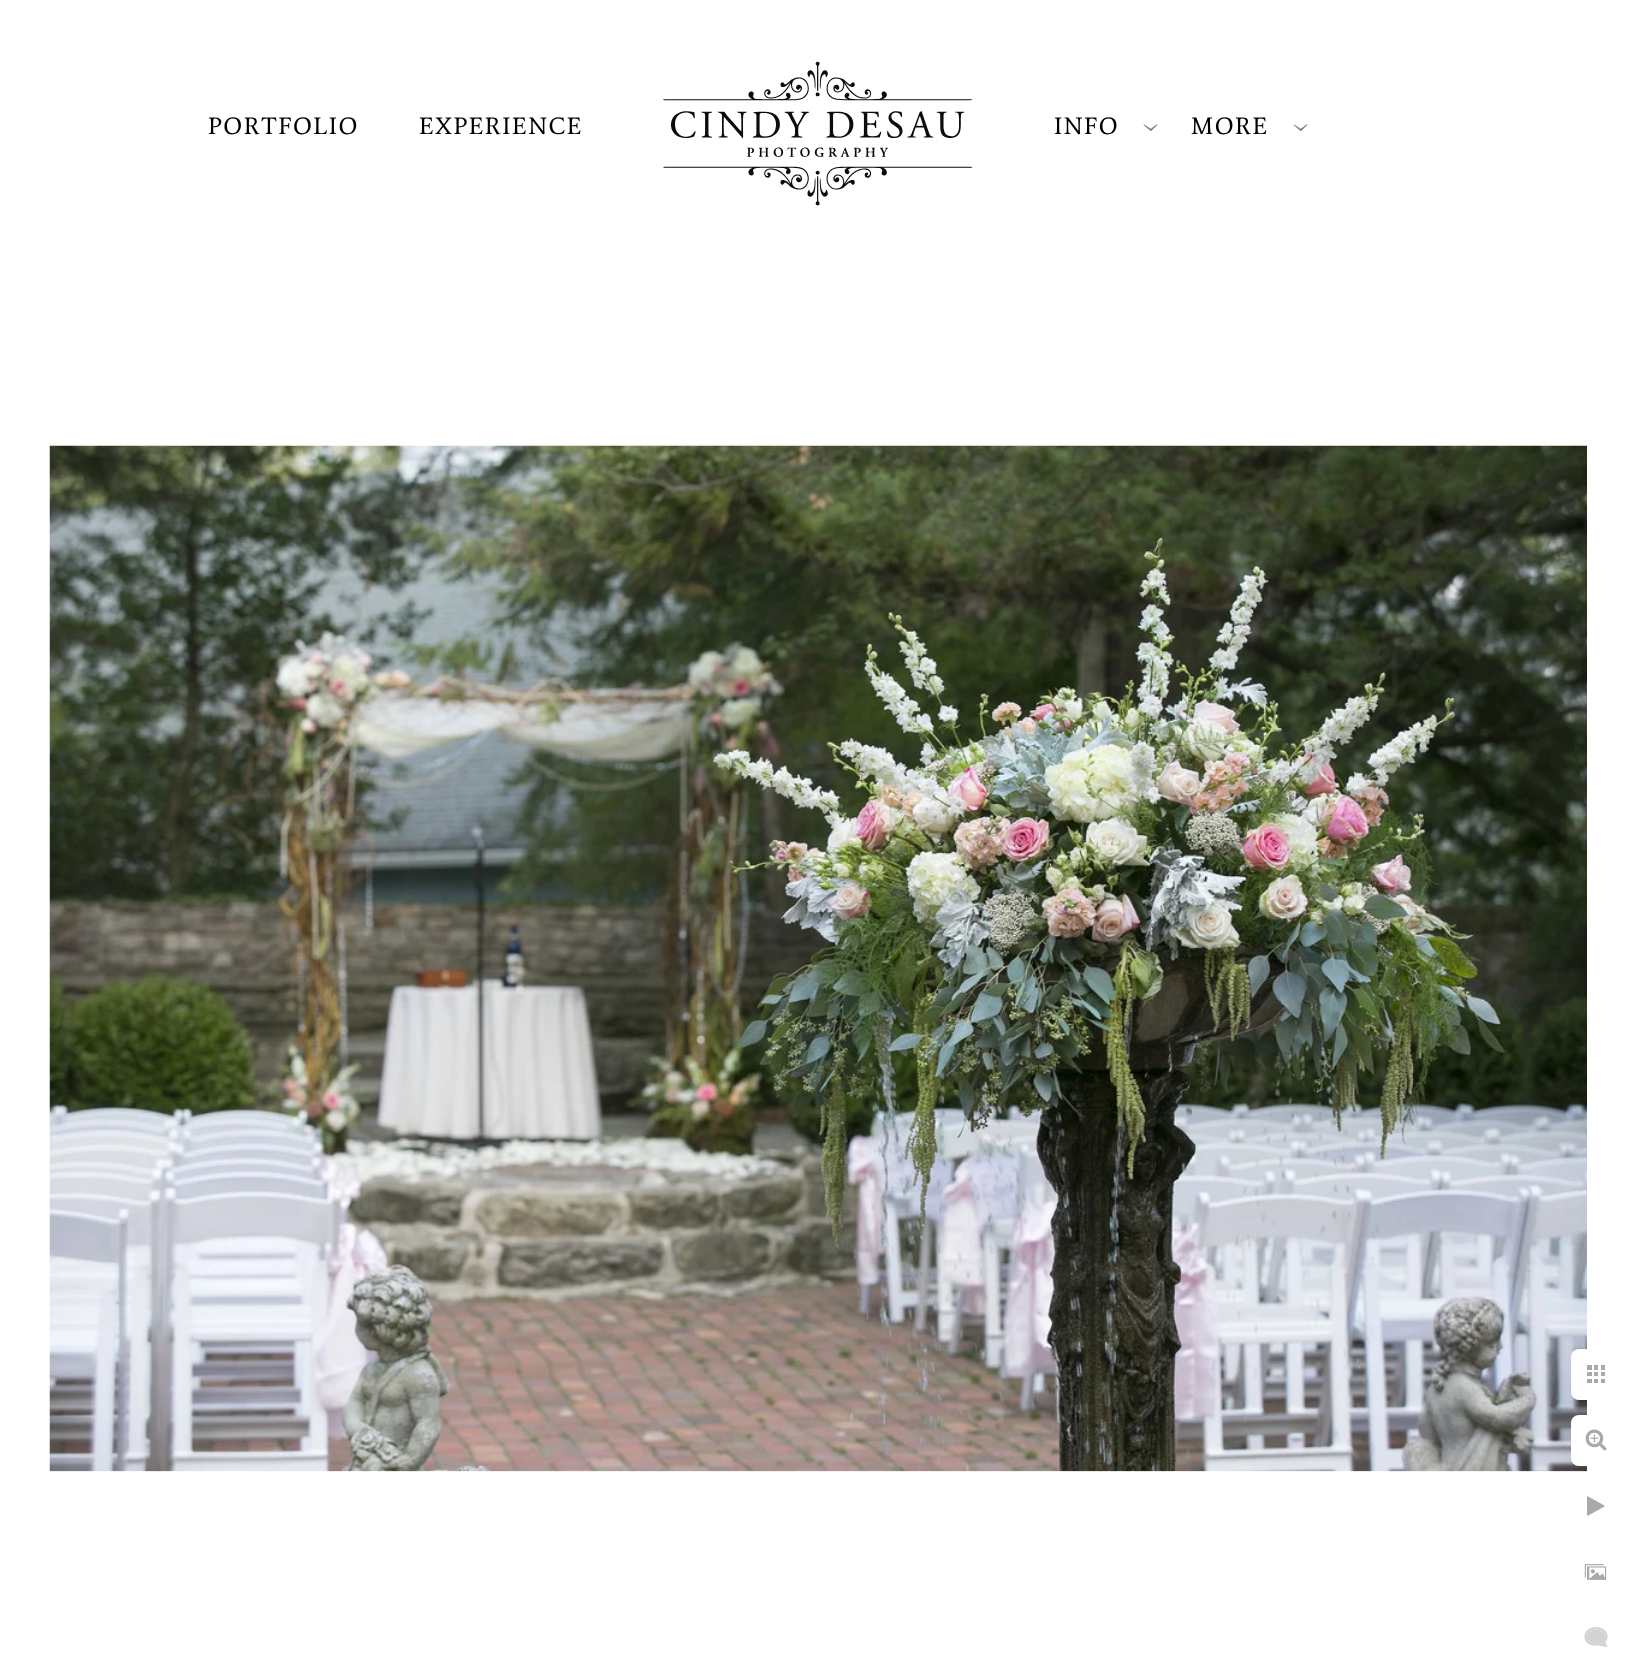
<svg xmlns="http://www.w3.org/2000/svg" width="1636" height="1663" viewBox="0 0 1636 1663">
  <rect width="100%" height="100%" fill="#ffffff"/>
  <text x="208" y="134" font-family="Average" font-size="24" letter-spacing="1.5" fill="#000000">PORTFOLIO</text>
  <text x="419" y="134" font-family="Average" font-size="24" letter-spacing="1.5" fill="#000000">EXPERIENCE</text>
  <image x="663" y="61" width="310" height="145" href="img1.png"/>
  <text x="1054" y="134" font-family="Average" font-size="24" letter-spacing="1.5" fill="#000000">INFO</text>
  <image x="1143" y="124" width="15" height="7" href="img2.png"/>
  <text x="1191" y="134" font-family="Average" font-size="24" letter-spacing="1.5" fill="#000000">MORE</text>
  <image x="1293" y="124" width="15" height="7" href="img2.png"/>
  <image x="49" y="445" width="1538" height="1027" href="img3.png"/>
  <rect x="1571" y="1349" width="51" height="51" rx="8" fill="#ffffff"/>
  <image x="1587" y="1365" width="18" height="18" href="img4.png"/>
  <rect x="1571" y="1415" width="51" height="51" rx="8" fill="#ffffff"/>
  <image x="1585" y="1429" width="22" height="22" href="img5.png"/>
  <image x="1587" y="1496" width="18" height="20" href="img6.png"/>
  <image x="1584" y="1564" width="23" height="16" href="img7.png"/>
  <image x="1584" y="1627" width="24" height="21" href="img8.png"/>
</svg>
